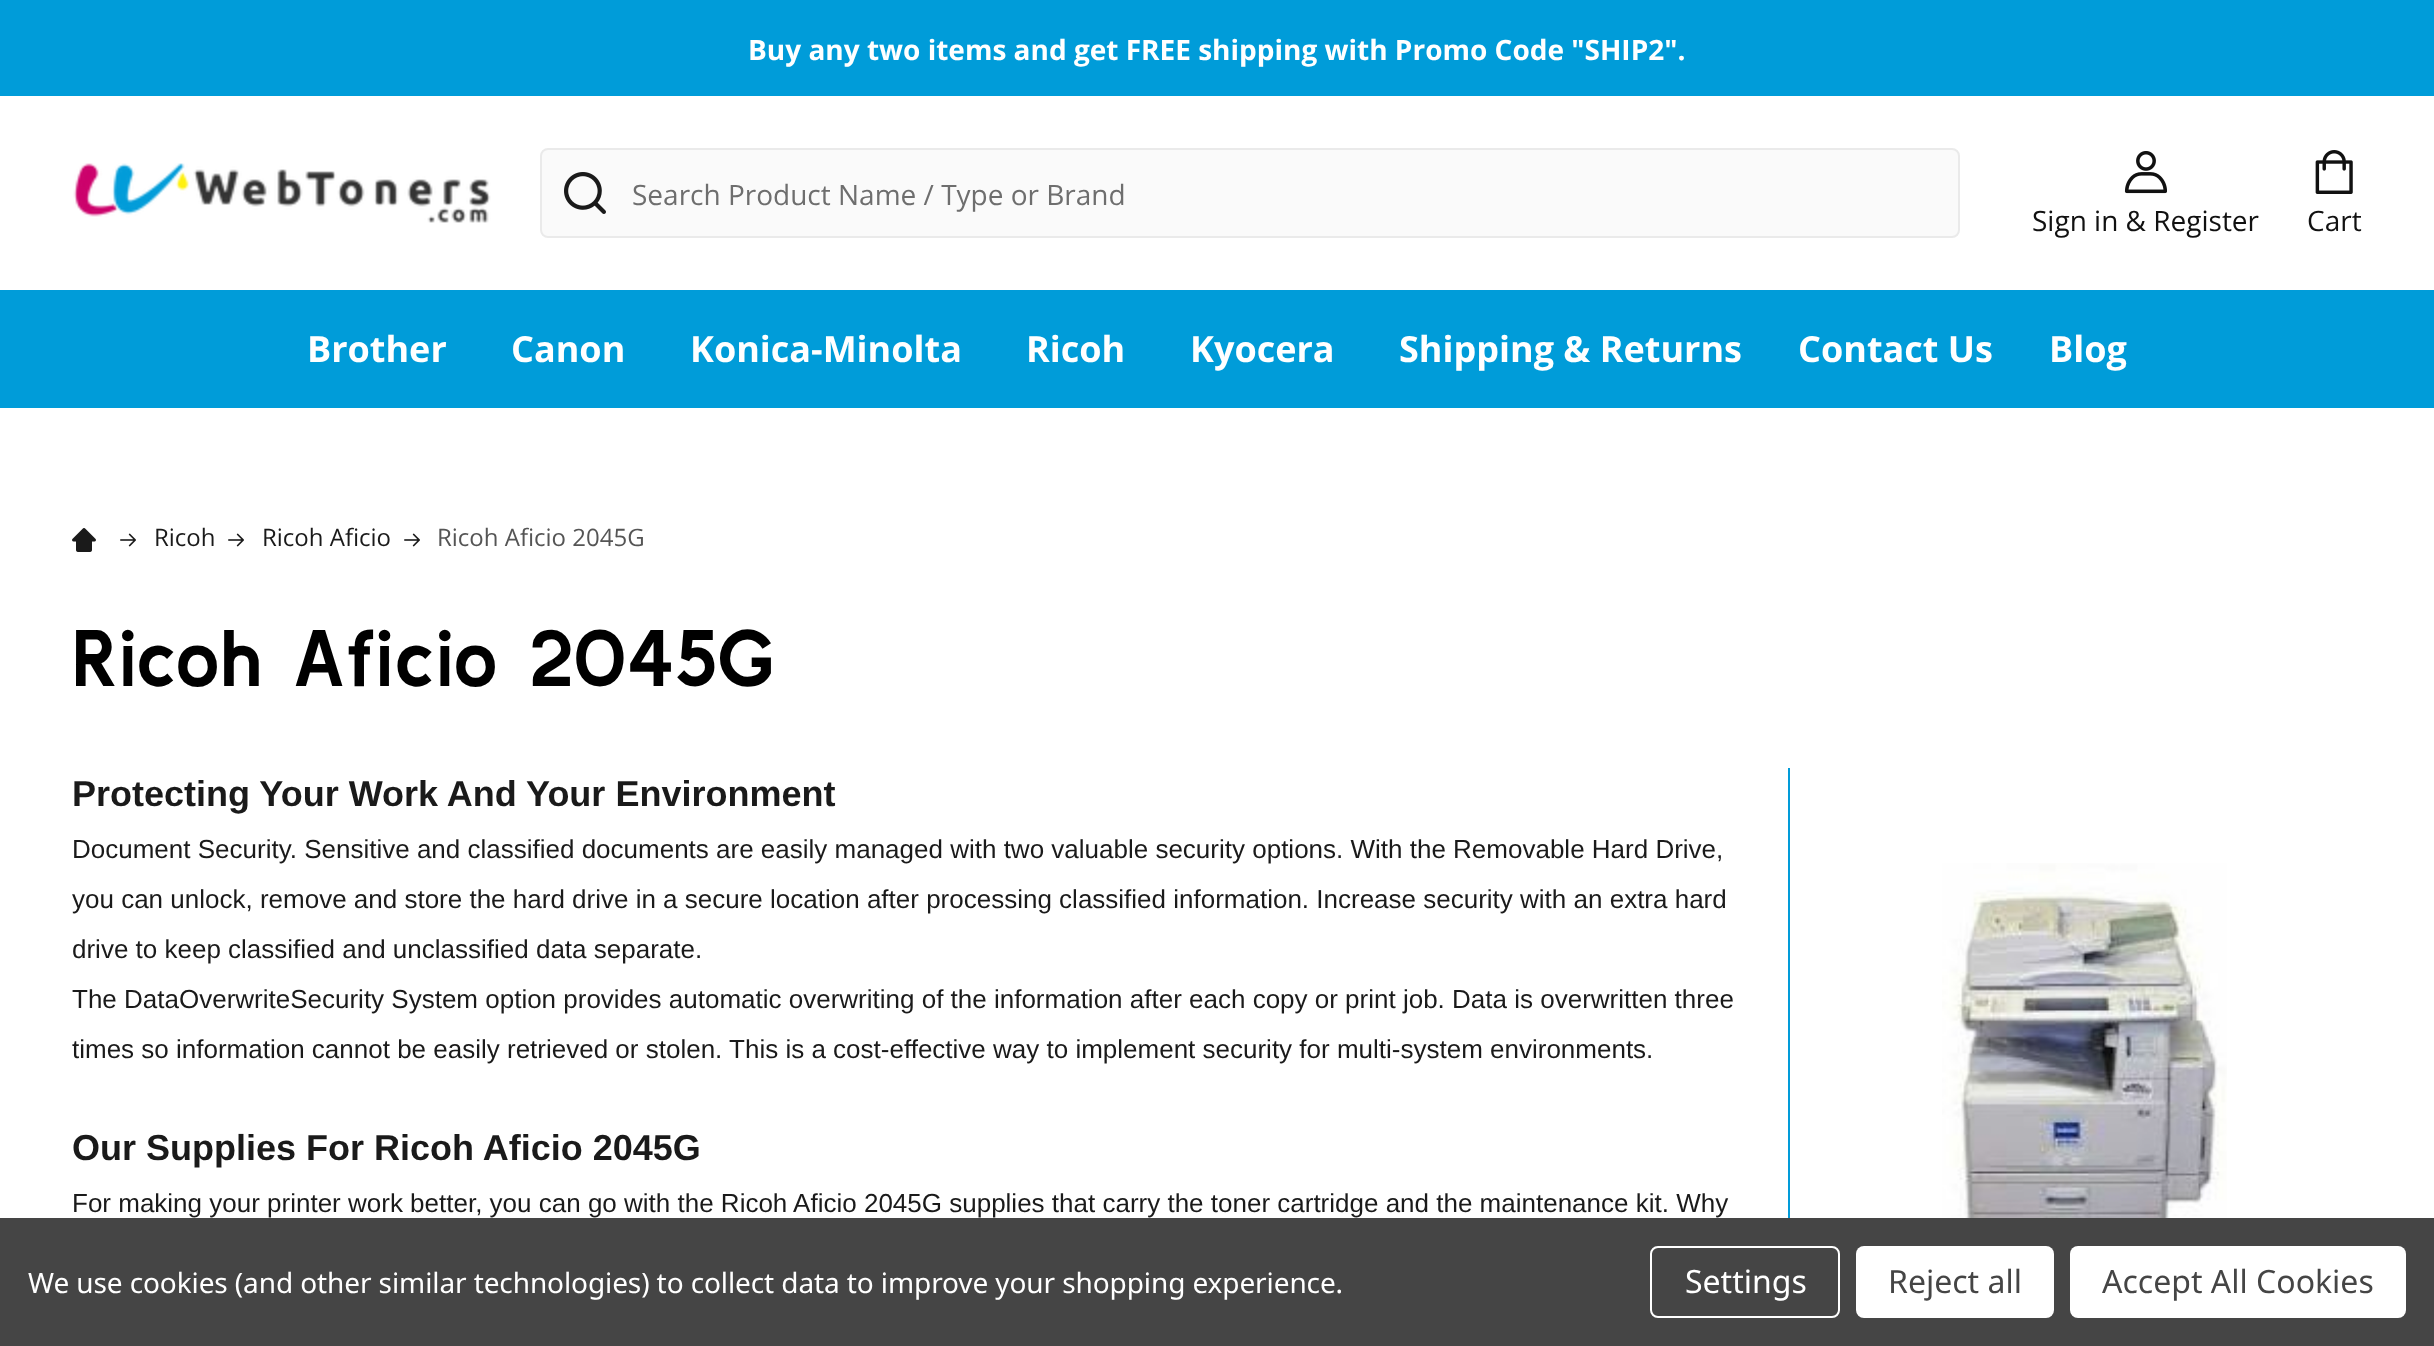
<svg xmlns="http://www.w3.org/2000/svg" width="2434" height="1346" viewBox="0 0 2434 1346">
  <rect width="100%" height="100%" fill="#ffffff"/>
  <rect x="0" y="0" width="2434" height="96" fill="#009cd9"/>
  <text x="748" y="60" font-family="Open Sans" font-size="28" font-weight="bold" fill="#ffffff">Buy any two items and get FREE shipping with Promo Code "SHIP2".</text>
  <image x="73" y="163" width="418" height="60" href="img1.png"/>
  <rect x="541" y="149" width="1418" height="88" rx="7" fill="#fafafa" stroke="#eaeaea" stroke-width="2"/>
  <image x="564" y="172" width="42" height="42" href="img2.png"/>
  <text x="632" y="205" font-family="Open Sans" font-size="28" fill="#6e6e6e">Search Product Name / Type or Brand</text>
  <image x="2124" y="151" width="43" height="43" href="img3.png"/>
  <text x="2032" y="231" font-family="Open Sans" font-size="28" fill="#111111">Sign in &amp; Register</text>
  <image x="2315" y="150" width="38" height="44" href="img4.png"/>
  <text x="2307" y="231" font-family="Open Sans" font-size="28" fill="#111111">Cart</text>
  <rect x="0" y="290" width="2434" height="118" fill="#009cd9"/>
  <text x="307" y="362" font-family="Open Sans" font-size="36" font-weight="bold" fill="#ffffff">Brother</text>
  <text x="511" y="362" font-family="Open Sans" font-size="36" font-weight="bold" fill="#ffffff">Canon</text>
  <text x="690" y="362" font-family="Open Sans" font-size="36" font-weight="bold" fill="#ffffff">Konica-Minolta</text>
  <text x="1026" y="362" font-family="Open Sans" font-size="36" font-weight="bold" fill="#ffffff">Ricoh</text>
  <text x="1190" y="362" font-family="Open Sans" font-size="36" font-weight="bold" fill="#ffffff">Kyocera</text>
  <text x="1399" y="362" font-family="Open Sans" font-size="36" font-weight="bold" fill="#ffffff">Shipping &amp; Returns</text>
  <text x="1798" y="362" font-family="Open Sans" font-size="36" font-weight="bold" fill="#ffffff">Contact Us</text>
  <text x="2049" y="362" font-family="Open Sans" font-size="36" font-weight="bold" fill="#ffffff">Blog</text>
  <image x="72" y="528" width="24" height="24" href="img5.png"/>
  <image x="120" y="533" width="16" height="14" href="img6.png"/>
  <text x="154" y="546" font-family="Open Sans" font-size="24" fill="#1a1a1a">Ricoh</text>
  <image x="228" y="533" width="16" height="14" href="img6.png"/>
  <text x="262" y="546" font-family="Open Sans" font-size="24" fill="#1a1a1a">Ricoh Aficio</text>
  <image x="404" y="533" width="16" height="14" href="img6.png"/>
  <text x="437" y="546" font-family="Open Sans" font-size="24" fill="#555555">Ricoh Aficio 2045G</text>
  <text x="72" y="686" font-family="Kulim Park" font-size="80" font-weight="bold" fill="#000000">Ricoh Aficio 2045G</text>
  <rect x="1788" y="768" width="2" height="450" fill="#029cd9"/>
  <text x="72" y="806" font-family="Liberation Sans" font-size="36" font-weight="bold" fill="#1a1a1a">Protecting Your Work And Your Environment</text>
  <text x="72" y="858" font-family="Liberation Sans" font-size="26" fill="#1a1a1a">Document Security. Sensitive and classified documents are easily managed with two valuable security options. With the Removable Hard Drive,</text>
  <text x="72" y="908" font-family="Liberation Sans" font-size="26" fill="#1a1a1a">you can unlock, remove and store the hard drive in a secure location after processing classified information. Increase security with an extra hard</text>
  <text x="72" y="958" font-family="Liberation Sans" font-size="26" fill="#1a1a1a">drive to keep classified and unclassified data separate.</text>
  <text x="72" y="1008" font-family="Liberation Sans" font-size="26" fill="#1a1a1a">The DataOverwriteSecurity System option provides automatic overwriting of the information after each copy or print job. Data is overwritten three</text>
  <text x="72" y="1058" font-family="Liberation Sans" font-size="26" fill="#1a1a1a">times so information cannot be easily retrieved or stolen. This is a cost-effective way to implement security for multi-system environments.</text>
  <text x="72" y="1160" font-family="Liberation Sans" font-size="36" font-weight="bold" fill="#1a1a1a">Our Supplies For Ricoh Aficio 2045G</text>
  <text x="72" y="1212" font-family="Liberation Sans" font-size="26" fill="#1a1a1a">For making your printer work better, you can go with the Ricoh Aficio 2045G supplies that carry the toner cartridge and the maintenance kit. Why</text>
  <image x="1942" y="863" width="285" height="355" href="img7.png"/>
  <rect x="0" y="1218" width="2434" height="128" fill="#454545"/>
  <text x="28" y="1293" font-family="Noto Sans" font-size="28" letter-spacing="-0.1" fill="#ffffff">We use cookies (and other similar technologies) to collect data to improve your shopping experience.</text>
  <rect x="1651" y="1247" width="188" height="70" rx="7" fill="none" stroke="#ffffff" stroke-width="2"/>
  <text x="1685" y="1293" font-family="Noto Sans" font-size="32" fill="#ffffff">Settings</text>
  <rect x="1856" y="1246" width="198" height="72" rx="8" fill="#ffffff"/>
  <text x="1888" y="1293" font-family="Noto Sans" font-size="32" fill="#454545">Reject all</text>
  <rect x="2070" y="1246" width="336" height="72" rx="8" fill="#ffffff"/>
  <text x="2102" y="1293" font-family="Noto Sans" font-size="32" fill="#454545">Accept All Cookies</text>
</svg>
